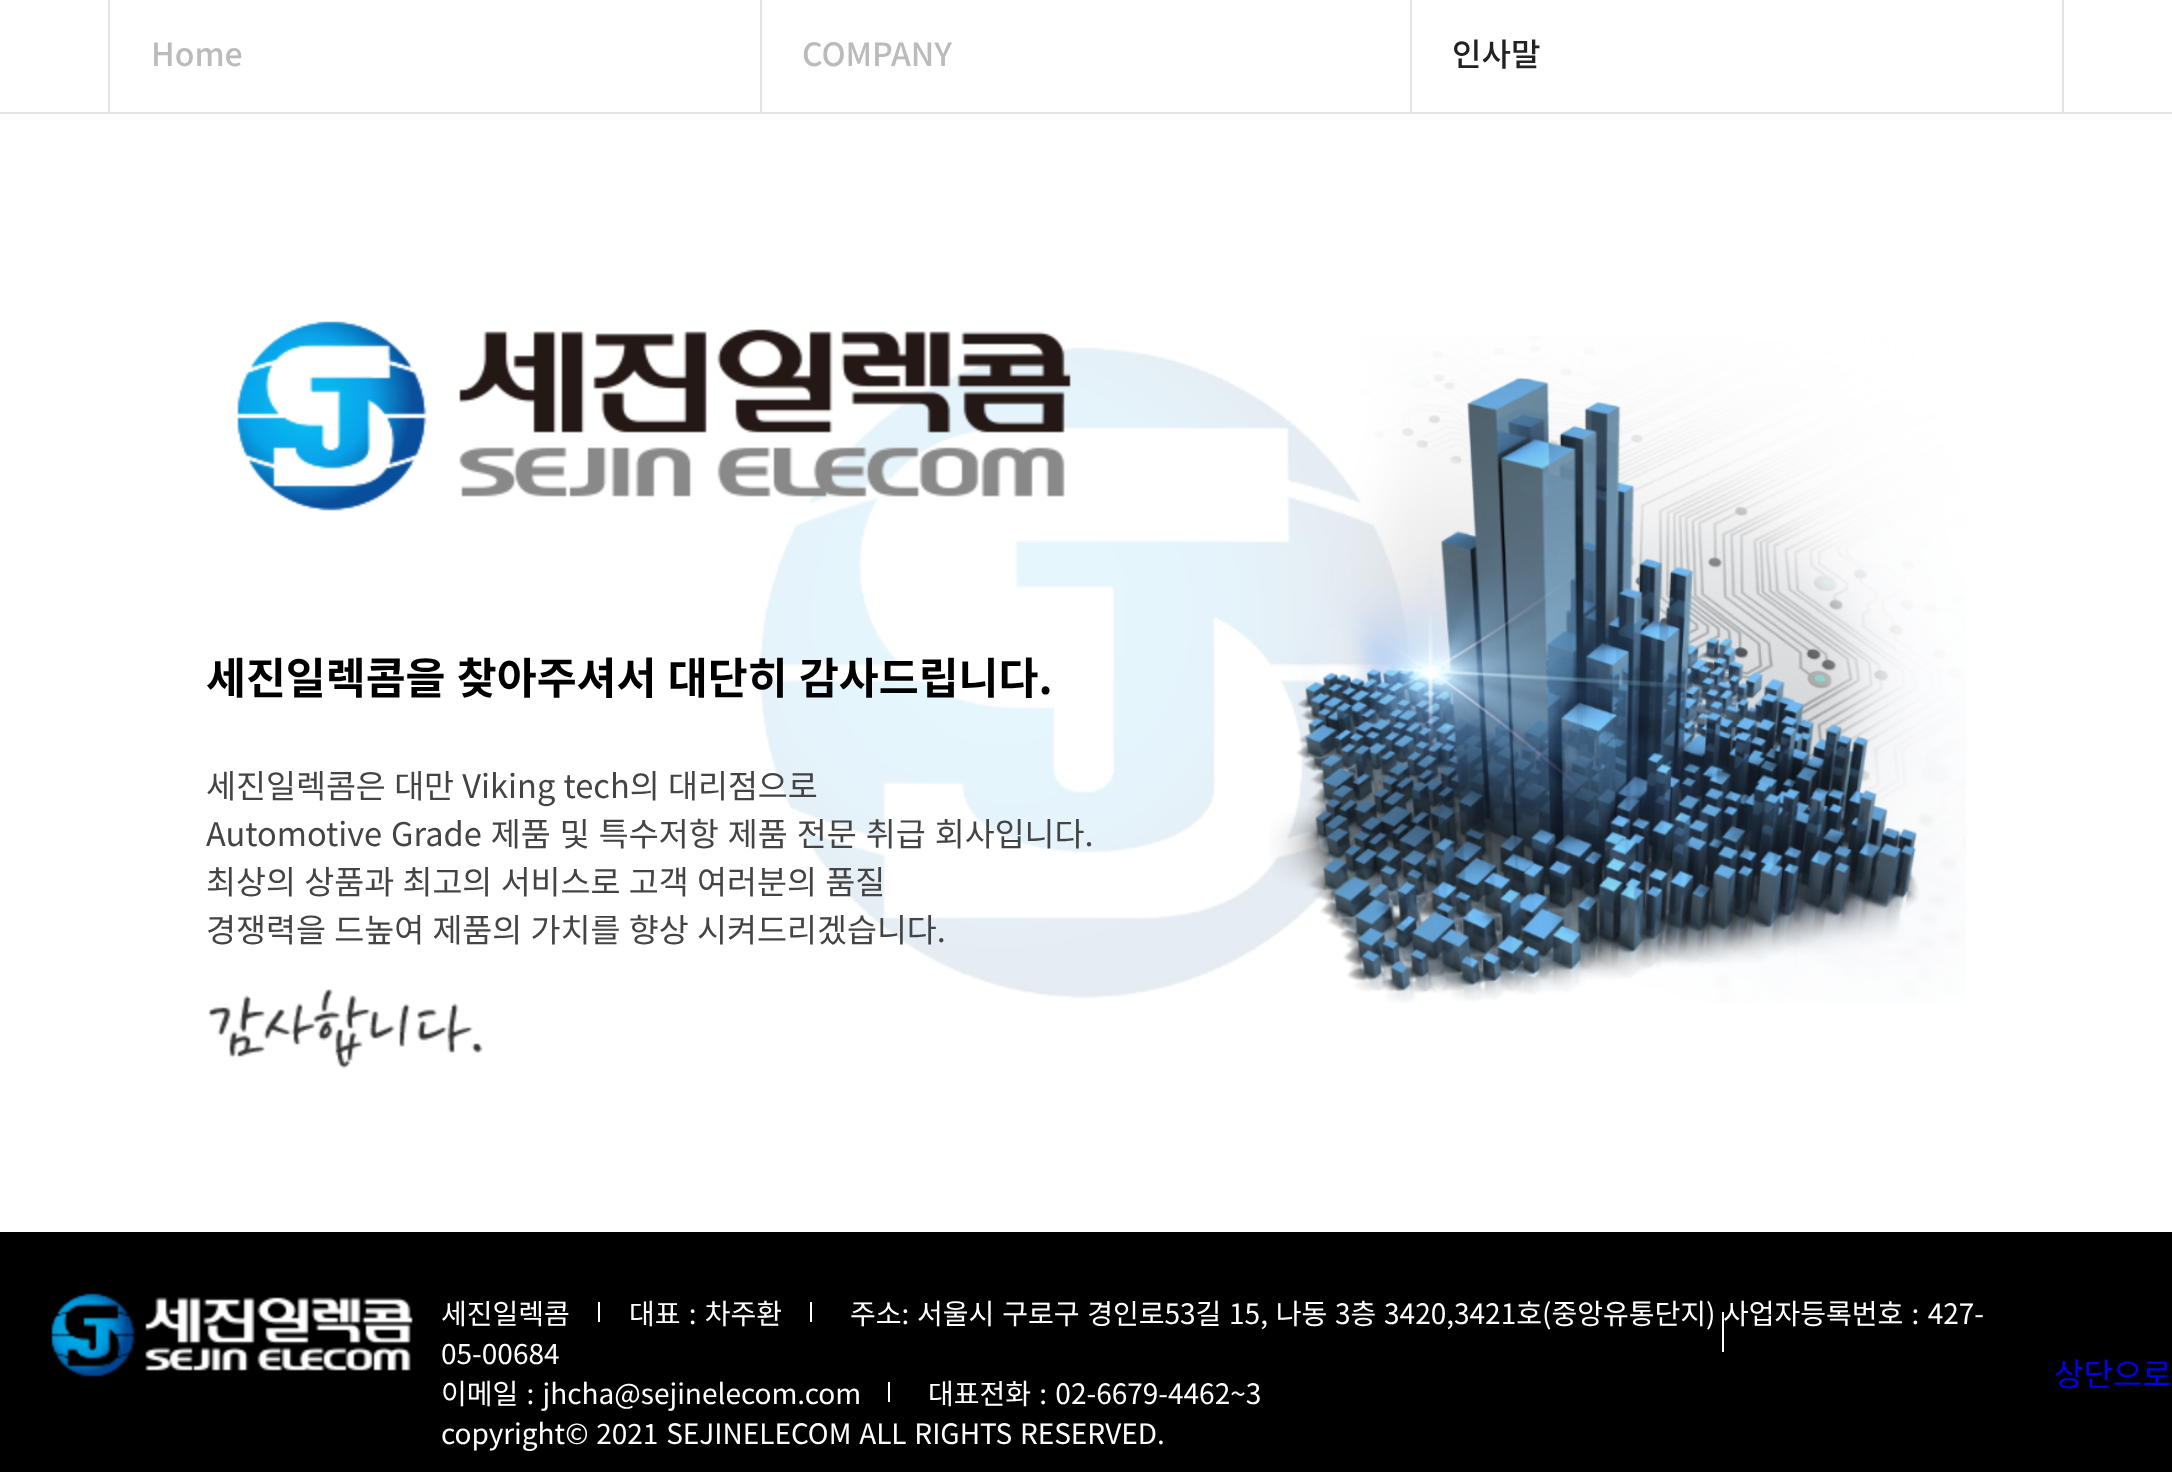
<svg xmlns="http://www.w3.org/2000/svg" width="2172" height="1472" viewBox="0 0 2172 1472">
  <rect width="100%" height="100%" fill="#ffffff"/>
  <rect x="0" y="112" width="2172" height="2" fill="#e4e4e4"/>
  <rect x="760" y="0" width="2" height="112" fill="#e4e4e4"/>
  <rect x="108" y="0" width="2" height="112" fill="#e4e4e4"/>
  <text x="151" y="66" font-family="Noto Sans KR" font-size="32" font-weight="500" fill="#bbbbbb">Home</text>
  <text x="802" y="66" font-family="Noto Sans KR" font-size="32" font-weight="500" fill="#bbbbbb">COMPANY</text>
  <rect x="2062" y="0" width="2" height="112" fill="#e4e4e4"/>
  <rect x="1410" y="0" width="2" height="112" fill="#e4e4e4"/>
  <text x="1452" y="66" font-family="Noto Sans KR" font-size="32" font-weight="500" fill="#222222">인사말</text>
  <image x="759" y="347" width="652" height="652" href="img1.png"/>
  <image x="237" y="321" width="834" height="190" href="img2.png"/>
  <text x="206" y="694" word-spacing="1.5" font-family="Noto Sans KR" font-size="43.4" font-weight="bold" fill="#000000">세진일렉콤을 찾아주셔서 대단히 감사드립니다.</text>
  <text x="206" y="798" word-spacing="1" font-family="Noto Sans KR" font-size="32.6" fill="#444444">세진일렉콤은 대만 Viking tech의 대리점으로</text>
  <text x="206" y="846" word-spacing="1.75" font-family="Noto Sans KR" font-size="32.6" fill="#444444">Automotive Grade 제품 및 특수저항 제품 전문 취급 회사입니다.</text>
  <text x="206" y="894" word-spacing="1" font-family="Noto Sans KR" font-size="32.6" fill="#444444">최상의 상품과 최고의 서비스로 고객 여러분의 품질</text>
  <text x="206" y="942" word-spacing="1" font-family="Noto Sans KR" font-size="32.6" fill="#444444">경쟁력을 드높여 제품의 가치를 향상 시켜드리겠습니다.</text>
  <image x="208" y="989" width="275" height="80" href="img3.png"/>
  <image x="1270" y="336" width="696" height="667" href="img4.png"/>
  <rect x="0" y="1232" width="2172" height="240" fill="#000000"/>
  <image x="51" y="1293" width="362" height="84" href="img5.png"/>
  <text x="441" y="1324" font-family="Noto Sans KR" font-size="28" fill="#ffffff">세진일렉콤</text>
  <rect x="598" y="1302" width="2" height="20" fill="#ffffff"/>
  <text x="441" y="1364" font-family="Noto Sans KR" font-size="28" fill="#ffffff">05-00684</text>
  <rect x="1722" y="1312" width="2" height="40" fill="#ffffff"/>
  <text x="1723" y="1324" word-spacing="2" font-family="Noto Sans KR" font-size="28" fill="#ffffff">사업자등록번호 : 427-</text>
  <text x="629" y="1324" word-spacing="2" font-family="Noto Sans KR" font-size="28" fill="#ffffff">대표 : 차주환</text>
  <rect x="810" y="1302" width="2" height="20" fill="#ffffff"/>
  <text x="850" y="1324" word-spacing="1.5" font-family="Noto Sans KR" font-size="28" fill="#ffffff">주소: 서울시 구로구 경인로53길 15, 나동 3층 3420,3421호(중앙유통단지)</text>
  <text x="441" y="1404" word-spacing="2" font-family="Noto Sans KR" font-size="28" fill="#ffffff">이메일 : jhcha@sejinelecom.com</text>
  <rect x="888" y="1382" width="2" height="20" fill="#ffffff"/>
  <text x="928" y="1404" word-spacing="2" font-family="Noto Sans KR" font-size="28" fill="#ffffff">대표전화 : 02-6679-4462~3</text>
  <text x="441" y="1444" word-spacing="1.5" font-family="Noto Sans KR" font-size="28" fill="#ffffff">copyright© 2021 SEJINELECOM ALL RIGHTS RESERVED.</text>
  <text x="2054" y="1386" font-family="Noto Sans KR" font-size="32" fill="#0000ee">상단으로</text>
</svg>
